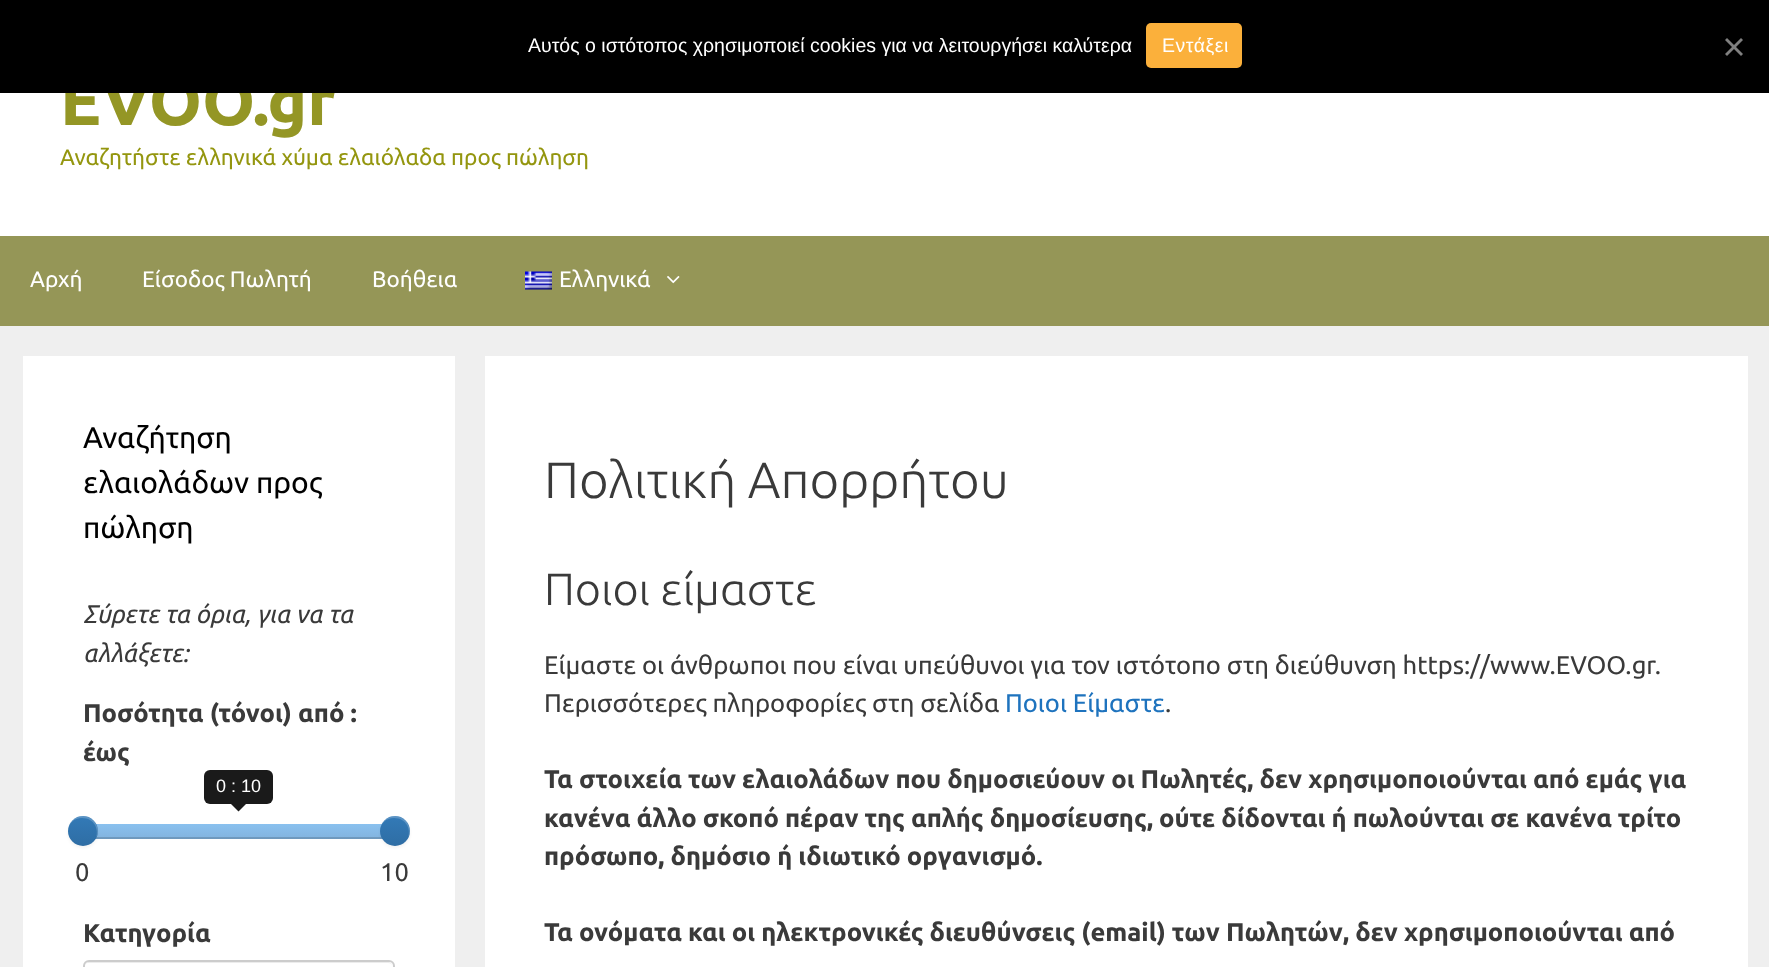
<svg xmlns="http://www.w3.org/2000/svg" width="1769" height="967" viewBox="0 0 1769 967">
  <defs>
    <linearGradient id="g1" gradientUnits="userSpaceOnUse" x1="239" y1="824" x2="239" y2="839"><stop offset="0" stop-color="#8ac1ef"/><stop offset="1" stop-color="#82b3de"/></linearGradient>
    <filter id="blur1" x="-50%" y="-200%" width="200%" height="500%"><feGaussianBlur stdDeviation="1.5"/></filter>
    <linearGradient id="g2" gradientUnits="userSpaceOnUse" x1="83" y1="816" x2="83" y2="846"><stop offset="0" stop-color="#337ab7"/><stop offset="1" stop-color="#2e6da4"/></linearGradient>
    <linearGradient id="g3" gradientUnits="userSpaceOnUse" x1="395" y1="816" x2="395" y2="846"><stop offset="0" stop-color="#337ab7"/><stop offset="1" stop-color="#2e6da4"/></linearGradient>
  </defs>
  <rect width="100%" height="100%" fill="#efefef"/>
  <rect x="0" y="93" width="1769" height="143" fill="#ffffff"/>
  <text x="60" y="125" font-family="Ubuntu" font-size="67.5" font-weight="bold" fill="#949625">EVOO.gr</text>
  <rect x="0" y="0" width="1769" height="93" fill="#000000"/>
  <text x="528" y="52" font-family="Liberation Sans" font-size="19.5" fill="#ffffff">Αυτός ο ιστότοπος χρησιμοποιεί cookies για να λειτουργήσει καλύτερα</text>
  <rect x="1146" y="23" width="96" height="45" rx="5" fill="#fbb03b"/>
  <text x="1162" y="52" font-family="Liberation Sans" font-size="19.5" letter-spacing="0.5" fill="#ffffff">Εντάξει</text>
  <path d="M1741 38L1743 40L1727 56L1725 54Z" fill="#808080"/>
  <path d="M1725 40L1727 38L1743 54L1741 56Z" fill="#808080"/>
  <text x="60" y="165" font-family="Ubuntu" font-size="22.5" fill="#94960f">Αναζητήστε ελληνικά χύμα ελαιόλαδα προς πώληση</text>
  <rect x="0" y="236" width="1769" height="90" fill="#959657"/>
  <text x="30" y="287" font-family="Ubuntu" font-size="22.5" fill="#ffffff">Αρχή</text>
  <text x="142" y="287" font-family="Ubuntu" font-size="22.5" fill="#ffffff">Είσοδος Πωλητή</text>
  <text x="372" y="287" font-family="Ubuntu" font-size="22.5" fill="#ffffff">Βοήθεια</text>
  <image x="525" y="271" width="27" height="19" href="img1.png"/>
  <text x="559" y="287" font-family="Ubuntu" font-size="22.5" fill="#ffffff">Ελληνικά</text>
  <image x="667" y="276" width="13" height="8" href="img2.png"/>
  <rect x="23" y="356" width="432" height="611" fill="#ffffff"/>
  <text x="83" y="448" font-family="Ubuntu" font-size="30" fill="#000000">Αναζήτηση</text>
  <text x="83" y="493" font-family="Ubuntu" font-size="30" fill="#000000">ελαιολάδων προς</text>
  <text x="83" y="538" font-family="Ubuntu" font-size="30" fill="#000000">πώληση</text>
  <text x="83" y="623" font-family="Ubuntu" font-size="25.5" font-style="italic" fill="#3a3a3a">Σύρετε τα όρια, για να τα</text>
  <text x="83" y="662" font-family="Ubuntu" font-size="25.5" font-style="italic" fill="#3a3a3a">αλλάξετε:</text>
  <text x="83" y="722" font-family="Ubuntu" font-size="25.5" font-weight="bold" fill="#3a3a3a">Ποσότητα (τόνοι) από :</text>
  <text x="83" y="761" font-family="Ubuntu" font-size="25.5" font-weight="bold" fill="#3a3a3a">έως</text>
  <rect x="204" y="770" width="69" height="34" rx="6" fill="#1a1a1a"/>
  <text x="216" y="792" font-family="Liberation Sans" font-size="18" fill="#ffffff">0 : 10</text>
  <path d="M231 804H246L238.5 811.5Z" fill="#1a1a1a"/>
  <rect x="95" y="824" width="288" height="15" fill="url(#g1)"/>
  <path d="M83 834C84 837 86 839 89 839H389C392 839 395 836 395 833V828C395 832 393 837 388 837H88C86 837 84 836 83 834Z" fill="#000000" fill-opacity="0.15"/>
  <rect x="68" y="818" width="30" height="30" rx="15" fill="#000000" fill-opacity="0.05" filter="url(#blur1)"/>
  <circle cx="83" cy="831" r="15" fill="url(#g2)"/>
  <path d="M82 818C94.5 818 99 829.5 96 838C104 824 85.5 808.5 73 820C70 822.5 68.5 826 68 830C69 823.5 74 818 82 818Z" fill="#ffffff" fill-opacity="0.2"/>
  <rect x="380" y="818" width="30" height="30" rx="15" fill="#000000" fill-opacity="0.05" filter="url(#blur1)"/>
  <circle cx="395" cy="831" r="15" fill="url(#g3)"/>
  <path d="M394 818C406.5 818 411 829.5 408 838C416 824 397.5 808.5 385 820C382 822.5 380.5 826 380 830C381 823.5 386 818 394 818Z" fill="#ffffff" fill-opacity="0.2"/>
  <text x="75" y="881" font-family="Ubuntu" font-size="25.5" fill="#3a3a3a">0</text>
  <text x="380" y="881" font-family="Ubuntu" font-size="25.5" fill="#3a3a3a">10</text>
  <text x="83" y="942" font-family="Ubuntu" font-size="25.5" font-weight="bold" fill="#3a3a3a">Κατηγορία</text>
  <path d="M88 963H388C391 963 393 965 393 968C393 965 391 962 388 962H89C86 962 84 965 84 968C84 965 86 963 88 963Z" fill="#ececec"/>
  <rect x="84" y="961" width="310" height="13" rx="5" fill="none" stroke="#cccccc" stroke-width="2"/>
  <rect x="485" y="356" width="1263" height="611" fill="#ffffff"/>
  <text x="544" y="498" font-family="Ubuntu" font-size="51" font-weight="300" fill="#3a3a3a">Πολιτική Απορρήτου</text>
  <text x="544" y="605" font-family="Ubuntu" font-size="45" font-weight="300" fill="#3a3a3a">Ποιοι είμαστε</text>
  <text x="544" y="674" font-family="Ubuntu" font-size="25.5" fill="#3a3a3a">Είμαστε οι άνθρωποι που είναι υπεύθυνοι για τον ιστότοπο στη διεύθυνση https://www.EVOO.gr.</text>
  <text x="544" y="712" font-family="Ubuntu" font-size="25.5" fill="#3a3a3a">Περισσότερες πληροφορίες στη σελίδα</text>
  <text x="1005" y="712" font-family="Ubuntu" font-size="25.5" fill="#1e73be">Ποιοι Είμαστε</text>
  <text x="1165" y="712" font-family="Ubuntu" font-size="25.5" fill="#3a3a3a">.</text>
  <text x="544" y="788" font-family="Ubuntu" font-size="25.5" font-weight="bold" fill="#3a3a3a">Τα στοιχεία των ελαιολάδων που δημοσιεύουν οι Πωλητές, δεν χρησιμοποιούνται από εμάς για</text>
  <text x="544" y="827" font-family="Ubuntu" font-size="25.5" font-weight="bold" fill="#3a3a3a">κανένα άλλο σκοπό πέραν της απλής δημοσίευσης, ούτε δίδονται ή πωλούνται σε κανένα τρίτο</text>
  <text x="544" y="865" font-family="Ubuntu" font-size="25.5" font-weight="bold" fill="#3a3a3a">πρόσωπο, δημόσιο ή ιδιωτικό οργανισμό.</text>
  <text x="544" y="941" font-family="Ubuntu" font-size="25.5" font-weight="bold" fill="#3a3a3a">Τα ονόματα και οι ηλεκτρονικές διευθύνσεις (email) των Πωλητών, δεν χρησιμοποιούνται από</text>
</svg>
